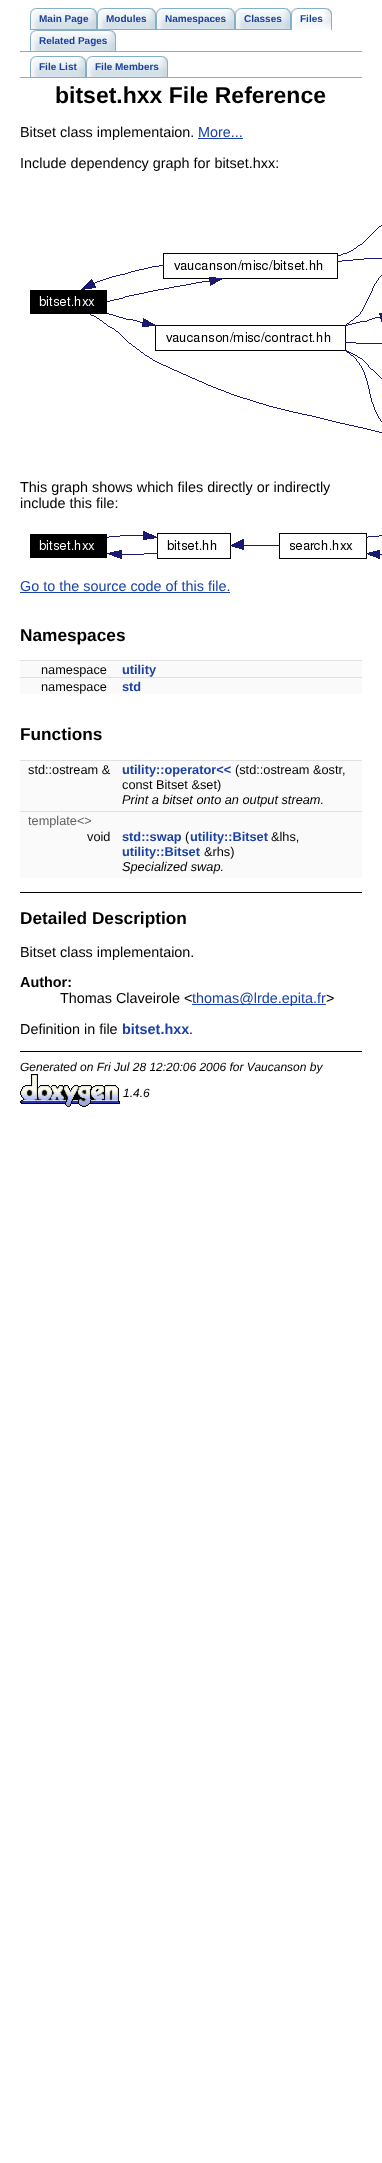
<svg xmlns="http://www.w3.org/2000/svg" width="382" height="2163" viewBox="0 0 382 2163">
  <rect width="100%" height="100%" fill="#ffffff"/>
  <rect x="20" y="51" width="342" height="1" fill="#84b0c7"/>
  <image x="39" y="8" width="58" height="21" href="img1.png"/>
  <rect x="30" y="29" width="261" height="1" fill="#84b0c7"/>
  <image x="30" y="8" width="9" height="21" href="img2.png"/>
  <text x="39" y="22" font-family="Liberation Sans" font-size="10" font-weight="bold" fill="#1a419d">Main Page</text>
  <image x="106" y="8" width="50" height="21" href="img3.png"/>
  <image x="97" y="8" width="9" height="21" href="img2.png"/>
  <text x="106" y="22" font-family="Liberation Sans" font-size="10" font-weight="bold" fill="#1a419d">Modules</text>
  <image x="165" y="8" width="70" height="21" href="img4.png"/>
  <image x="156" y="8" width="9" height="21" href="img2.png"/>
  <text x="165" y="22" font-family="Liberation Sans" font-size="10" font-weight="bold" fill="#1a419d">Namespaces</text>
  <image x="244" y="8" width="47" height="21" href="img5.png"/>
  <image x="235" y="8" width="9" height="21" href="img2.png"/>
  <text x="244" y="22" font-family="Liberation Sans" font-size="10" font-weight="bold" fill="#1a419d">Classes</text>
  <image x="298" y="8" width="34" height="22" href="img6.png"/>
  <image x="291" y="8" width="7" height="22" href="img7.png"/>
  <text x="300" y="22" font-family="Liberation Sans" font-size="10" font-weight="bold" fill="#1a419d">Files</text>
  <image x="39" y="30" width="77" height="21" href="img8.png"/>
  <image x="30" y="30" width="9" height="21" href="img2.png"/>
  <text x="39" y="44" font-family="Liberation Sans" font-size="10" font-weight="bold" fill="#1a419d">Related Pages</text>
  <rect x="20" y="77" width="342" height="1" fill="#84b0c7"/>
  <image x="39" y="56" width="47" height="21" href="img5.png"/>
  <image x="30" y="56" width="9" height="21" href="img2.png"/>
  <text x="39" y="70" font-family="Liberation Sans" font-size="10" font-weight="bold" fill="#1a419d">File List</text>
  <image x="95" y="56" width="73" height="21" href="img9.png"/>
  <image x="86" y="56" width="9" height="21" href="img2.png"/>
  <text x="95" y="70" font-family="Liberation Sans" font-size="10" font-weight="bold" fill="#1a419d">File Members</text>
  <text x="55" y="103" font-family="Liberation Sans" font-size="23" font-weight="bold" fill="#000000">bitset.hxx File Reference</text>
  <text x="20" y="137" font-family="Liberation Sans" font-size="14.4" fill="#000000">Bitset class implementaion.</text>
  <text x="198" y="137" font-family="Liberation Sans" font-size="14.4" fill="#1a41a8">More...</text>
  <rect x="198" y="138" width="45" height="1" fill="#1a41a8"/>
  <text x="20" y="168" font-family="Liberation Sans" font-size="14.4" fill="#000000">Include dependency graph for bitset.hxx:</text>
  <image x="30" y="225" width="352" height="208" href="img10.png"/>
  <text x="20" y="492" font-family="Liberation Sans" font-size="14.4" fill="#000000">This graph shows which files directly or indirectly</text>
  <text x="20" y="508" font-family="Liberation Sans" font-size="14.4" fill="#000000">include this file:</text>
  <image x="30" y="531" width="352" height="28" href="img11.png"/>
  <text x="20" y="591" font-family="Liberation Sans" font-size="14.4" fill="#1a41a8">Go to the source code of this file.</text>
  <rect x="20" y="592" width="210" height="1" fill="#1a41a8"/>
  <text x="20" y="641" font-family="Liberation Sans" font-size="17.25" font-weight="bold" fill="#000000">Namespaces</text>
  <rect x="20" y="661" width="342" height="16" fill="#fafafa"/>
  <rect x="20" y="660" width="342" height="1" fill="#e0e0e0"/>
  <text x="41" y="674" font-family="Liberation Sans" font-size="12.75" fill="#000000">namespace</text>
  <text x="122" y="674" font-family="Liberation Sans" font-size="12.75" font-weight="bold" fill="#1a41a8">utility</text>
  <rect x="20" y="678" width="342" height="16" fill="#fafafa"/>
  <rect x="20" y="677" width="342" height="1" fill="#e0e0e0"/>
  <text x="41" y="691" font-family="Liberation Sans" font-size="12.75" fill="#000000">namespace</text>
  <text x="122" y="691" font-family="Liberation Sans" font-size="12.75" font-weight="bold" fill="#1a41a8">std</text>
  <text x="20" y="740" font-family="Liberation Sans" font-size="17.25" font-weight="bold" fill="#000000">Functions</text>
  <rect x="20" y="761" width="342" height="31" fill="#fafafa"/>
  <rect x="20" y="760" width="342" height="1" fill="#e0e0e0"/>
  <text x="28" y="774" font-family="Liberation Sans" font-size="12.75" fill="#000000">std::ostream &amp;</text>
  <text x="122" y="774" font-family="Liberation Sans" font-size="12.75" font-weight="bold" fill="#1a41a8">utility::operator&lt;&lt;</text>
  <text x="235" y="774" font-family="Liberation Sans" font-size="12.75" fill="#000000">(std::ostream &amp;ostr,</text>
  <text x="122" y="789" font-family="Liberation Sans" font-size="12.75" fill="#000000">const Bitset &amp;set)</text>
  <rect x="20" y="792" width="342" height="19" fill="#fafafa"/>
  <text x="122" y="804" font-family="Liberation Sans" font-size="12.75" font-style="italic" fill="#000000">Print a bitset onto an output stream.</text>
  <rect x="20" y="812" width="342" height="16" fill="#fafafa"/>
  <rect x="20" y="811" width="342" height="1" fill="#e0e0e0"/>
  <text x="28" y="825" font-family="Liberation Sans" font-size="12.75" fill="#606060">template&lt;&gt;</text>
  <rect x="20" y="828" width="342" height="31" fill="#fafafa"/>
  <text x="87" y="841" font-family="Liberation Sans" font-size="12.75" fill="#000000">void</text>
  <text x="122" y="841" font-family="Liberation Sans" font-size="12.75" font-weight="bold" fill="#1a41a8">std::swap</text>
  <text x="185" y="841" font-family="Liberation Sans" font-size="12.75" fill="#000000">(</text>
  <text x="190" y="841" font-family="Liberation Sans" font-size="12.75" font-weight="bold" fill="#1a41a8">utility::Bitset</text>
  <text x="271" y="841" font-family="Liberation Sans" font-size="12.75" fill="#000000">&amp;lhs,</text>
  <text x="122" y="856" font-family="Liberation Sans" font-size="12.75" font-weight="bold" fill="#1a41a8">utility::Bitset</text>
  <text x="204" y="856" font-family="Liberation Sans" font-size="12.75" fill="#000000">&amp;rhs)</text>
  <rect x="20" y="859" width="342" height="19" fill="#fafafa"/>
  <text x="122" y="871" font-family="Liberation Sans" font-size="12.75" font-style="italic" fill="#000000">Specialized swap.</text>
  <rect x="20" y="892" width="342" height="1" fill="#000000"/>
  <text x="20" y="924" font-family="Liberation Sans" font-size="17.25" font-weight="bold" fill="#000000">Detailed Description</text>
  <text x="20" y="957" font-family="Liberation Sans" font-size="14.4" fill="#000000">Bitset class implementaion.</text>
  <text x="20" y="987" font-family="Liberation Sans" font-size="14.4" font-weight="bold" fill="#000000">Author:</text>
  <text x="60" y="1003" font-family="Liberation Sans" font-size="14.4" fill="#000000">Thomas Claveirole &lt;</text>
  <rect x="192" y="1004" width="134" height="1" fill="#1a41a8"/>
  <text x="192" y="1003" font-family="Liberation Sans" font-size="14.4" fill="#1a41a8">thomas@lrde.epita.fr</text>
  <text x="326" y="1003" font-family="Liberation Sans" font-size="14.4" fill="#000000">&gt;</text>
  <text x="20" y="1034" font-family="Liberation Sans" font-size="14.4" fill="#000000">Definition in file</text>
  <text x="122" y="1034" font-family="Liberation Sans" font-size="14.4" font-weight="bold" fill="#1a41a8">bitset.hxx</text>
  <text x="189" y="1034" font-family="Liberation Sans" font-size="14.4" fill="#000000">.</text>
  <rect x="20" y="1051" width="342" height="1" fill="#000000"/>
  <text x="20" y="1071" font-family="Liberation Sans" font-size="12" font-style="italic" fill="#000000">Generated on Fri Jul 28 12:20:06 2006 for Vaucanson by</text>
  <image x="20" y="1074" width="100" height="33" href="img12.png"/>
  <text x="123" y="1097" font-family="Liberation Sans" font-size="12" font-style="italic" fill="#000000">1.4.6</text>
</svg>
